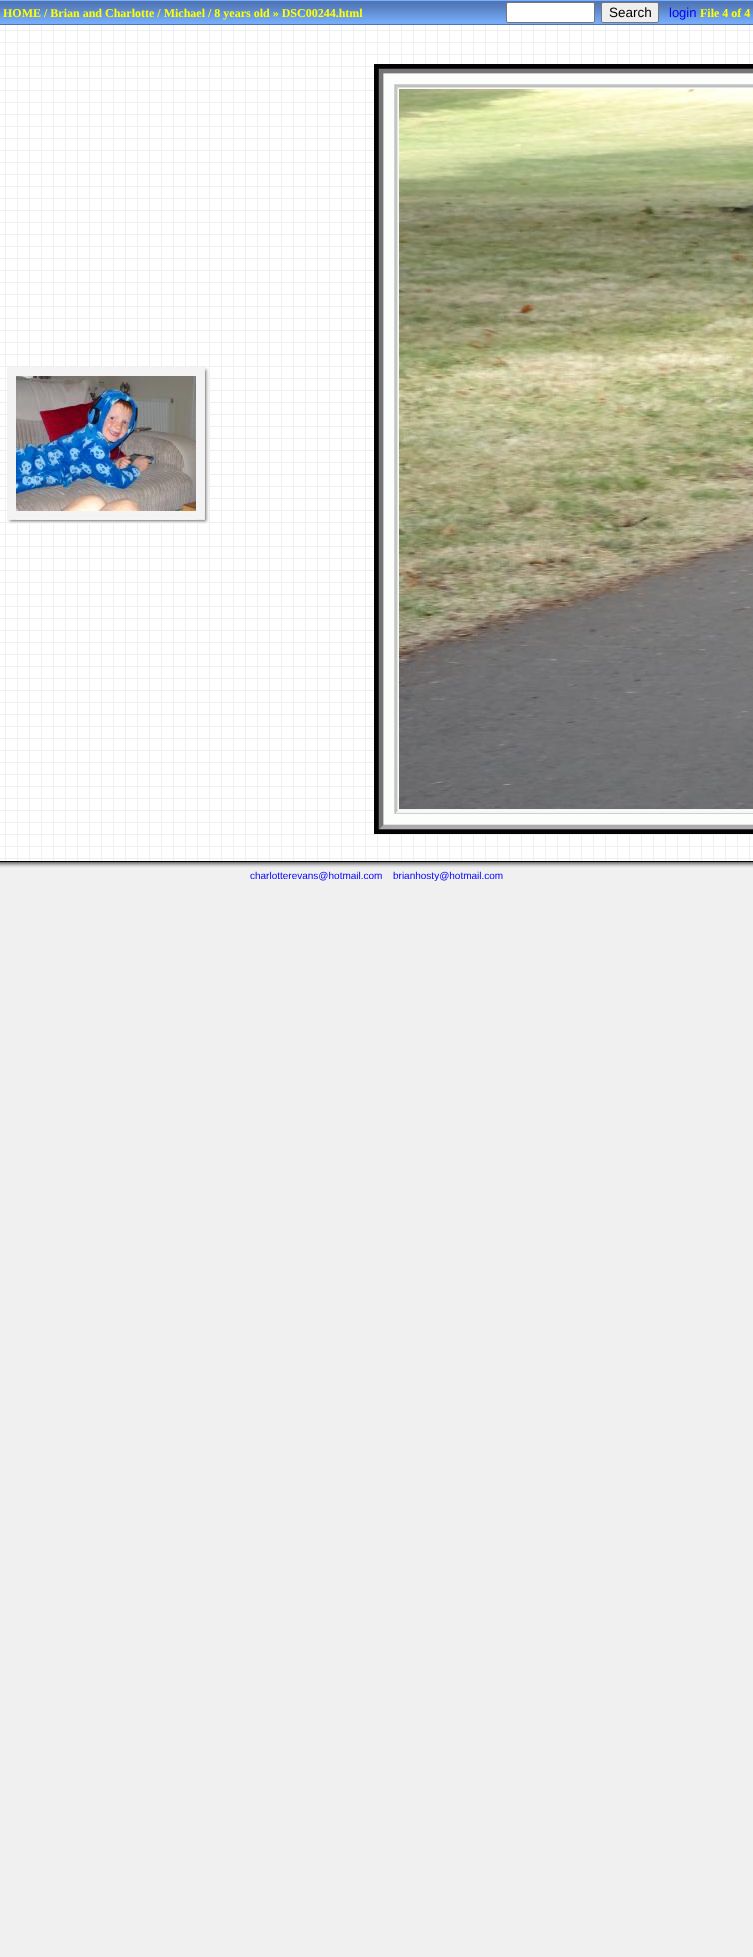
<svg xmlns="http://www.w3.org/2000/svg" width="753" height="1957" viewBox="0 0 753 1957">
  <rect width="100%" height="100%" fill="#f0f0f0"/>
  <image x="0" y="0" width="753" height="25" href="img1.png"/>
  <text x="3" y="17" font-family="Liberation Serif" font-size="12" font-weight="bold" fill="#ffff00">HOME / Brian and Charlotte / Michael / 8 years old » DSC00244.html</text>
  <rect x="506.5" y="2.5" width="88" height="20" rx="1.5" fill="#ffffff" stroke="#767676"/>
  <rect x="601.5" y="2.5" width="57" height="20" rx="1.5" fill="#efefef" stroke="#767676"/>
  <text x="609" y="17" font-family="Liberation Sans" font-size="13.5" fill="#000000">Search</text>
  <text x="669" y="17" font-family="Liberation Sans" font-size="13" fill="#0000ff">login</text>
  <text x="700" y="17" font-family="Liberation Serif" font-size="12" font-weight="bold" fill="#ffff00">File 4 of 4</text>
  <image x="0" y="25" width="753" height="836" href="img2.png"/>
  <image x="7" y="367" width="9" height="9" href="img3.png"/>
  <image x="16" y="367" width="180" height="9" href="img4.png"/>
  <image x="196" y="367" width="13" height="9" href="img5.png"/>
  <rect x="7" y="376" width="9" height="135" fill="#f4f3f4"/>
  <image x="16" y="376" width="180" height="135" href="img6.png"/>
  <image x="196" y="376" width="13" height="135" href="img7.png"/>
  <image x="7" y="511" width="9" height="13" href="img8.png"/>
  <image x="16" y="511" width="180" height="13" href="img9.png"/>
  <image x="196" y="511" width="13" height="13" href="img10.png"/>
  <image x="374" y="64" width="25" height="25" href="img11.png"/>
  <image x="399" y="64" width="354" height="25" href="img12.png"/>
  <image x="374" y="89" width="25" height="720" href="img13.png"/>
  <image x="399" y="89" width="354" height="720" href="img14.png"/>
  <image x="374" y="809" width="25" height="25" href="img15.png"/>
  <image x="399" y="809" width="354" height="25" href="img16.png"/>
  <rect x="0" y="861" width="753" height="1" fill="#000000"/>
  <rect x="0" y="862" width="753" height="1" fill="#787878"/>
  <rect x="0" y="863" width="753" height="1" fill="#969696"/>
  <rect x="0" y="864" width="753" height="1" fill="#b4b4b4"/>
  <rect x="0" y="865" width="753" height="1" fill="#cccccc"/>
  <rect x="0" y="866" width="753" height="1" fill="#dedede"/>
  <rect x="0" y="867" width="753" height="1" fill="#ebebeb"/>
  <text x="250" y="879" font-family="Liberation Sans" font-size="10" fill="#0000ff">charlotterevans@hotmail.com</text>
  <text x="393" y="879" font-family="Liberation Sans" font-size="10" fill="#0000ff">brianhosty@hotmail.com</text>
</svg>
